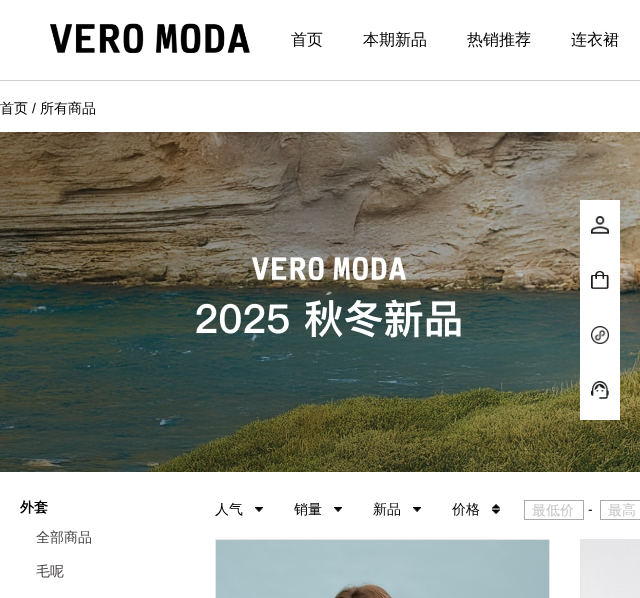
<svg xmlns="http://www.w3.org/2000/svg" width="640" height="598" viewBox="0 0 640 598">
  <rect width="100%" height="100%" fill="#ffffff"/>
  <rect x="0" y="80" width="640" height="1" fill="#cfcfcf"/>
  <image x="50" y="23" width="200" height="30" href="img1.png"/>
  <text x="291" y="45" font-family="WenQuanYi Zen Hei" font-size="16" font-weight="500" fill="#000000">首页</text>
  <text x="363" y="45" font-family="WenQuanYi Zen Hei" font-size="16" font-weight="500" fill="#000000">本期新品</text>
  <text x="467" y="45" font-family="WenQuanYi Zen Hei" font-size="16" font-weight="500" fill="#000000">热销推荐</text>
  <text x="571" y="45" font-family="WenQuanYi Zen Hei" font-size="16" font-weight="500" fill="#000000">连衣裙</text>
  <image x="0" y="132" width="640" height="340" href="img6.png"/>
  <rect x="580" y="200" width="40" height="220" fill="#ffffff"/>
  <image x="591" y="216" width="18" height="18" href="img2.png"/>
  <image x="591" y="271" width="18" height="18" href="img3.png"/>
  <image x="591" y="326" width="18" height="18" href="img4.png"/>
  <image x="591" y="381" width="18" height="18" href="img5.png"/>
  <text x="0" y="113" font-family="WenQuanYi Zen Hei" font-size="14" font-weight="500" fill="#000000">首页</text>
  <text x="32" y="113" font-family="Liberation Sans" font-size="14" fill="#000000">/</text>
  <text x="40" y="113" font-family="WenQuanYi Zen Hei" font-size="14" font-weight="500" fill="#000000">所有商品</text>
  <text x="20" y="512" font-family="WenQuanYi Zen Hei" font-size="14" font-weight="bold" fill="#000000">外套</text>
  <text x="36" y="542" font-family="WenQuanYi Zen Hei" font-size="14" font-weight="500" fill="#464242">全部商品</text>
  <text x="36" y="576" font-family="WenQuanYi Zen Hei" font-size="14" font-weight="500" fill="#464242">毛呢</text>
  <image x="255" y="507" width="8" height="5" href="img7.png"/>
  <text x="215" y="514" font-family="WenQuanYi Zen Hei" font-size="14" font-weight="500" fill="#000000">人气</text>
  <image x="334" y="507" width="8" height="5" href="img7.png"/>
  <text x="294" y="514" font-family="WenQuanYi Zen Hei" font-size="14" font-weight="500" fill="#000000">销量</text>
  <image x="413" y="507" width="8" height="5" href="img7.png"/>
  <text x="373" y="514" font-family="WenQuanYi Zen Hei" font-size="14" font-weight="500" fill="#000000">新品</text>
  <image x="492" y="504" width="8" height="10" href="img8.png"/>
  <text x="452" y="514" font-family="WenQuanYi Zen Hei" font-size="14" font-weight="500" fill="#000000">价格</text>
  <rect x="524.5" y="500.5" width="59" height="19" fill="none" stroke="#aaaaaa"/>
  <text x="532" y="515" font-family="WenQuanYi Zen Hei" font-size="14" font-weight="500" fill="#c4c4c4">最低价</text>
  <text x="588" y="514" font-family="Liberation Sans" font-size="14" fill="#000000">-</text>
  <rect x="600.5" y="500.5" width="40" height="19" fill="none" stroke="#aaaaaa"/>
  <text x="608" y="515" font-family="WenQuanYi Zen Hei" font-size="14" font-weight="500" fill="#c4c4c4">最高</text>
  <rect x="215.5" y="539.5" width="334" height="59" fill="none" stroke="#e6e6e6"/>
  <image x="216" y="540" width="333" height="58" href="img9.png"/>
  <rect x="580.5" y="539.5" width="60" height="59" fill="none" stroke="#e6e6e6"/>
  <image x="581" y="540" width="59" height="58" href="img10.png"/>
</svg>
